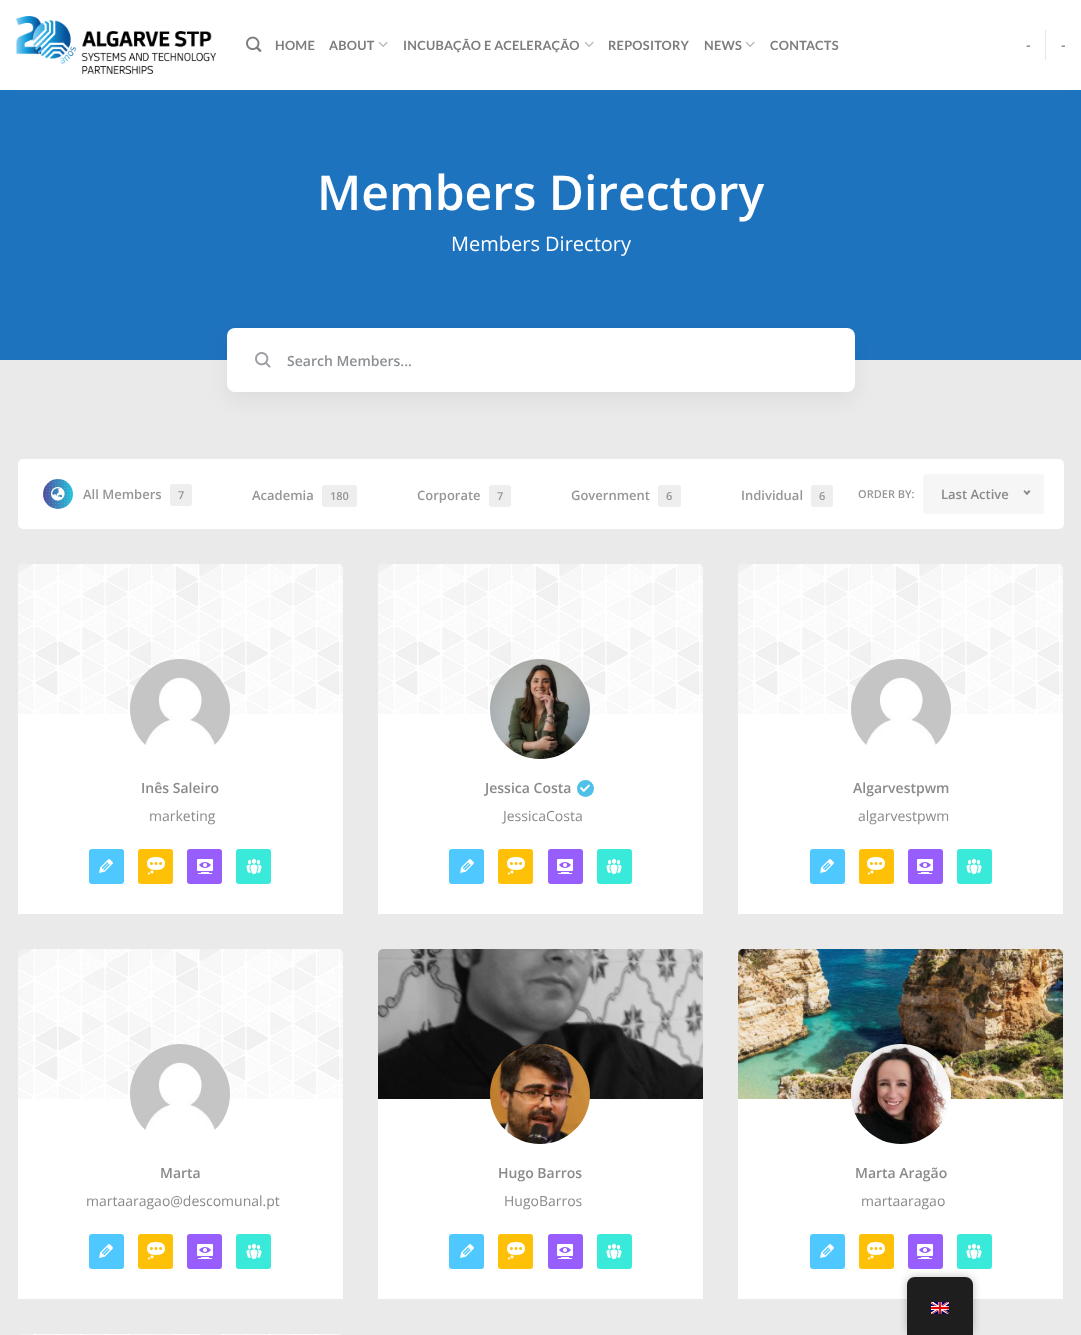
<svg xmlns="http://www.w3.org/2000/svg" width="1081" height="1335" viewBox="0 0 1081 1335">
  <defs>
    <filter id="blur1" x="-50%" y="-200%" width="200%" height="500%"><feGaussianBlur stdDeviation="10"/></filter>
    <filter id="blur2" x="-50%" y="-200%" width="200%" height="500%"><feGaussianBlur stdDeviation="4"/></filter>
  </defs>
  <rect width="100%" height="100%" fill="#ffffff"/>
  <image x="16" y="16" width="200" height="58" href="img1.png"/>
  <image x="246" y="36" width="16" height="16" href="img2.png"/>
  <text x="275" y="50" font-family="Lato" font-size="12.75" font-weight="bold" letter-spacing="0.25" fill="#7d7d7d">HOME</text>
  <text x="329" y="50" font-family="Lato" font-size="12.75" font-weight="bold" letter-spacing="0.25" fill="#7d7d7d">ABOUT</text>
  <image x="378" y="41" width="10" height="6" href="img3.png"/>
  <text x="403" y="50" font-family="Lato" font-size="12.75" font-weight="bold" letter-spacing="0.25" fill="#7d7d7d">INCUBAÇÃO E ACELERAÇÃO</text>
  <image x="584" y="41" width="10" height="6" href="img3.png"/>
  <text x="608" y="50" font-family="Lato" font-size="12.75" font-weight="bold" letter-spacing="0.25" fill="#7d7d7d">REPOSITORY</text>
  <text x="704" y="50" font-family="Lato" font-size="12.75" font-weight="bold" letter-spacing="0.25" fill="#7d7d7d">NEWS</text>
  <image x="745" y="41" width="10" height="6" href="img3.png"/>
  <text x="770" y="50" font-family="Lato" font-size="12.75" font-weight="bold" letter-spacing="0.25" fill="#7d7d7d">CONTACTS</text>
  <text x="1026" y="50" font-family="Lato" font-size="12.75" font-weight="bold" letter-spacing="0.25" fill="#7d7d7d">-</text>
  <rect x="1045" y="30" width="1" height="30" fill="#e6e6e6"/>
  <text x="1061" y="50" font-family="Lato" font-size="12.75" font-weight="bold" letter-spacing="0.25" fill="#7d7d7d">-</text>
  <rect x="0" y="90" width="1081" height="270" fill="#1e73be"/>
  <rect x="16" y="90" width="1050" height="1" fill="#2773b7"/>
  <rect x="0" y="360" width="1081" height="975" fill="#eaeaea"/>
  <text x="317" y="210" font-family="Open Sans" font-size="48" font-weight="600" fill="#ffffff">Members Directory</text>
  <text x="451" y="251" font-family="Open Sans" font-size="20" fill="#ffffff">Members Directory</text>
  <rect x="227" y="336" width="628" height="64" rx="8" fill="#000000" fill-opacity="0.06" filter="url(#blur1)"/>
  <rect x="227" y="328" width="628" height="64" rx="8" fill="#ffffff"/>
  <image x="255" y="352" width="16" height="16" href="img4.png"/>
  <text x="287" y="366" font-family="Open Sans" font-size="14" font-weight="600" fill="#8c9094">Search Members...</text>
  <rect x="18" y="459" width="1046" height="70" rx="5" fill="#ffffff"/>
  <image x="43" y="479" width="30" height="30" href="img5.png"/>
  <image x="51" y="487" width="14" height="14" href="img6.png"/>
  <text x="83" y="499" font-family="Open Sans" font-size="13" font-weight="600" fill="#969696">All Members</text>
  <rect x="170" y="484" width="22" height="22" rx="3" fill="#eeeeee"/>
  <text x="178" y="499" font-family="Open Sans" font-size="11" font-weight="600" fill="#969696">7</text>
  <text x="252" y="500" font-family="Open Sans" font-size="13" font-weight="600" fill="#969696">Academia</text>
  <rect x="322" y="485" width="35" height="22" rx="3" fill="#eeeeee"/>
  <text x="330" y="500" font-family="Open Sans" font-size="11" font-weight="600" fill="#969696">180</text>
  <text x="417" y="500" font-family="Open Sans" font-size="13" font-weight="600" fill="#969696">Corporate</text>
  <rect x="489" y="485" width="22" height="22" rx="3" fill="#eeeeee"/>
  <text x="497" y="500" font-family="Open Sans" font-size="11" font-weight="600" fill="#969696">7</text>
  <text x="571" y="500" font-family="Open Sans" font-size="13" font-weight="600" fill="#969696">Government</text>
  <rect x="658" y="485" width="23" height="22" rx="3" fill="#eeeeee"/>
  <text x="666" y="500" font-family="Open Sans" font-size="11" font-weight="600" fill="#969696">6</text>
  <text x="741" y="500" font-family="Open Sans" font-size="13" font-weight="600" fill="#969696">Individual</text>
  <rect x="811" y="485" width="22" height="22" rx="3" fill="#eeeeee"/>
  <text x="819" y="500" font-family="Open Sans" font-size="11" font-weight="600" fill="#969696">6</text>
  <text x="858" y="498" font-family="Open Sans" font-size="11" font-weight="600" fill="#969696">ORDER BY:</text>
  <rect x="923" y="474" width="121" height="40" rx="3" fill="#f6f6f6"/>
  <text x="941" y="499" font-family="Open Sans" font-size="13" font-weight="600" fill="#8a8a8a">Last Active</text>
  <path d="M1029 490L1030.5 491.5L1027 495L1025.5 493.5Z" fill="#898989"/>
  <path d="M1024.5 490L1028 493.5L1027 495L1023.5 491.5Z" fill="#898989"/>
  <path d="M23 564H338C341 564 343 566 343 569V914H18V569C18 566 20 564 23 564Z" fill="#ffffff"/>
  <image x="18" y="564" width="325" height="150" href="img7.png"/>
  <image x="130" y="659" width="100" height="86" href="img8.png"/>
  <text x="141" y="793" font-family="Open Sans" font-size="14" font-weight="600" fill="#8a8a8a">Inês Saleiro</text>
  <text x="149" y="821" font-family="Open Sans" font-size="14" fill="#8a8a8a">marketing</text>
  <rect x="89" y="849" width="35" height="35" rx="3" fill="#4fc8ff"/>
  <image x="99" y="859" width="14" height="14" href="img9.png"/>
  <rect x="138" y="849" width="35" height="35" rx="3" fill="#ffc107"/>
  <image x="147" y="857" width="18" height="18" href="img10.png"/>
  <rect x="187" y="849" width="35" height="35" rx="3" fill="#975dfd"/>
  <image x="197" y="859" width="16" height="15" href="img11.png"/>
  <rect x="236" y="849" width="35" height="35" rx="3" fill="#39e9d9"/>
  <image x="246" y="858" width="16" height="16" href="img12.png"/>
  <path d="M383 564H698C701 564 703 566 703 569V914H378V569C378 566 380 564 383 564Z" fill="#ffffff"/>
  <image x="378" y="564" width="325" height="150" href="img7.png"/>
  <image x="490" y="659" width="100" height="100" href="img13.png"/>
  <text x="485" y="793" font-family="Open Sans" font-size="14" font-weight="600" fill="#8a8a8a">Jessica Costa</text>
  <circle cx="585.5" cy="788.5" r="8.5" fill="#4fc1e9"/>
  <image x="580" y="784" width="10" height="8" href="img14.png"/>
  <text x="503" y="821" font-family="Open Sans" font-size="14" fill="#8a8a8a">JessicaCosta</text>
  <rect x="449" y="849" width="35" height="35" rx="3" fill="#4fc8ff"/>
  <image x="460" y="859" width="14" height="14" href="img9.png"/>
  <rect x="498" y="849" width="35" height="35" rx="3" fill="#ffc107"/>
  <image x="507" y="857" width="18" height="18" href="img10.png"/>
  <rect x="548" y="849" width="35" height="35" rx="3" fill="#975dfd"/>
  <image x="557" y="859" width="16" height="15" href="img11.png"/>
  <rect x="597" y="849" width="35" height="35" rx="3" fill="#39e9d9"/>
  <image x="606" y="858" width="16" height="16" href="img12.png"/>
  <path d="M743 564H1058C1061 564 1063 566 1063 569V914H738V569C738 566 740 564 743 564Z" fill="#ffffff"/>
  <image x="738" y="564" width="325" height="150" href="img7.png"/>
  <image x="851" y="659" width="100" height="86" href="img15.png"/>
  <text x="853" y="793" font-family="Open Sans" font-size="14" font-weight="600" fill="#8a8a8a">Algarvestpwm</text>
  <text x="858" y="821" font-family="Open Sans" font-size="14" fill="#8a8a8a">algarvestpwm</text>
  <rect x="810" y="849" width="35" height="35" rx="3" fill="#4fc8ff"/>
  <image x="820" y="859" width="14" height="14" href="img9.png"/>
  <rect x="859" y="849" width="35" height="35" rx="3" fill="#ffc107"/>
  <image x="867" y="857" width="18" height="18" href="img10.png"/>
  <rect x="908" y="849" width="35" height="35" rx="3" fill="#975dfd"/>
  <image x="917" y="859" width="16" height="15" href="img11.png"/>
  <rect x="957" y="849" width="35" height="35" rx="3" fill="#39e9d9"/>
  <image x="966" y="858" width="16" height="16" href="img12.png"/>
  <path d="M23 949H338C341 949 343 951 343 954V1299H18V954C18 951 20 949 23 949Z" fill="#ffffff"/>
  <image x="18" y="949" width="325" height="150" href="img7.png"/>
  <image x="130" y="1044" width="100" height="86" href="img16.png"/>
  <text x="160" y="1178" font-family="Open Sans" font-size="14" font-weight="600" fill="#8a8a8a">Marta</text>
  <text x="86" y="1206" font-family="Open Sans" font-size="14" fill="#8a8a8a">martaaragao@descomunal.pt</text>
  <rect x="89" y="1234" width="35" height="35" rx="3" fill="#4fc8ff"/>
  <image x="99" y="1244" width="14" height="14" href="img9.png"/>
  <rect x="138" y="1234" width="35" height="35" rx="3" fill="#ffc107"/>
  <image x="147" y="1242" width="18" height="18" href="img10.png"/>
  <rect x="187" y="1234" width="35" height="35" rx="3" fill="#975dfd"/>
  <image x="197" y="1244" width="16" height="15" href="img11.png"/>
  <rect x="236" y="1234" width="35" height="35" rx="3" fill="#39e9d9"/>
  <image x="246" y="1243" width="16" height="16" href="img12.png"/>
  <path d="M383 949H698C701 949 703 951 703 954V1299H378V954C378 951 380 949 383 949Z" fill="#ffffff"/>
  <image x="378" y="949" width="325" height="150" href="img17.png"/>
  <image x="490" y="1044" width="100" height="100" href="img18.png"/>
  <text x="498" y="1178" font-family="Open Sans" font-size="14" font-weight="600" fill="#8a8a8a">Hugo Barros</text>
  <text x="504" y="1206" font-family="Open Sans" font-size="14" fill="#8a8a8a">HugoBarros</text>
  <rect x="449" y="1234" width="35" height="35" rx="3" fill="#4fc8ff"/>
  <image x="460" y="1244" width="14" height="14" href="img9.png"/>
  <rect x="498" y="1234" width="35" height="35" rx="3" fill="#ffc107"/>
  <image x="507" y="1242" width="18" height="18" href="img10.png"/>
  <rect x="548" y="1234" width="35" height="35" rx="3" fill="#975dfd"/>
  <image x="557" y="1244" width="16" height="15" href="img11.png"/>
  <rect x="597" y="1234" width="35" height="35" rx="3" fill="#39e9d9"/>
  <image x="606" y="1243" width="16" height="16" href="img12.png"/>
  <path d="M743 949H1058C1061 949 1063 951 1063 954V1299H738V954C738 951 740 949 743 949Z" fill="#ffffff"/>
  <image x="738" y="949" width="325" height="150" href="img19.png"/>
  <image x="851" y="1044" width="100" height="100" href="img20.png"/>
  <text x="855" y="1178" font-family="Open Sans" font-size="14" font-weight="600" fill="#8a8a8a">Marta Aragão</text>
  <text x="861" y="1206" font-family="Open Sans" font-size="14" fill="#8a8a8a">martaaragao</text>
  <rect x="810" y="1234" width="35" height="35" rx="3" fill="#4fc8ff"/>
  <image x="820" y="1244" width="14" height="14" href="img9.png"/>
  <rect x="859" y="1234" width="35" height="35" rx="3" fill="#ffc107"/>
  <image x="867" y="1242" width="18" height="18" href="img10.png"/>
  <rect x="908" y="1234" width="35" height="35" rx="3" fill="#975dfd"/>
  <image x="917" y="1244" width="16" height="15" href="img11.png"/>
  <rect x="957" y="1234" width="35" height="35" rx="3" fill="#39e9d9"/>
  <image x="966" y="1243" width="16" height="16" href="img12.png"/>
  <path d="M23 1334H338C341 1334 343 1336 343 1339V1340H18V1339C18 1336 20 1334 23 1334Z" fill="#ffffff"/>
  <image x="21" y="1334" width="318" height="1" href="img21.png"/>
  <rect x="907" y="1277" width="66" height="58" rx="8" fill="#000000" fill-opacity="0.25" filter="url(#blur2)"/>
  <path d="M915 1277H965C969.5 1277 973 1280.5 973 1285V1335H907V1285C907 1280.5 910.5 1277 915 1277Z" fill="#1e1e1e"/>
  <image x="931" y="1302" width="18" height="12" href="img22.png"/>
</svg>
